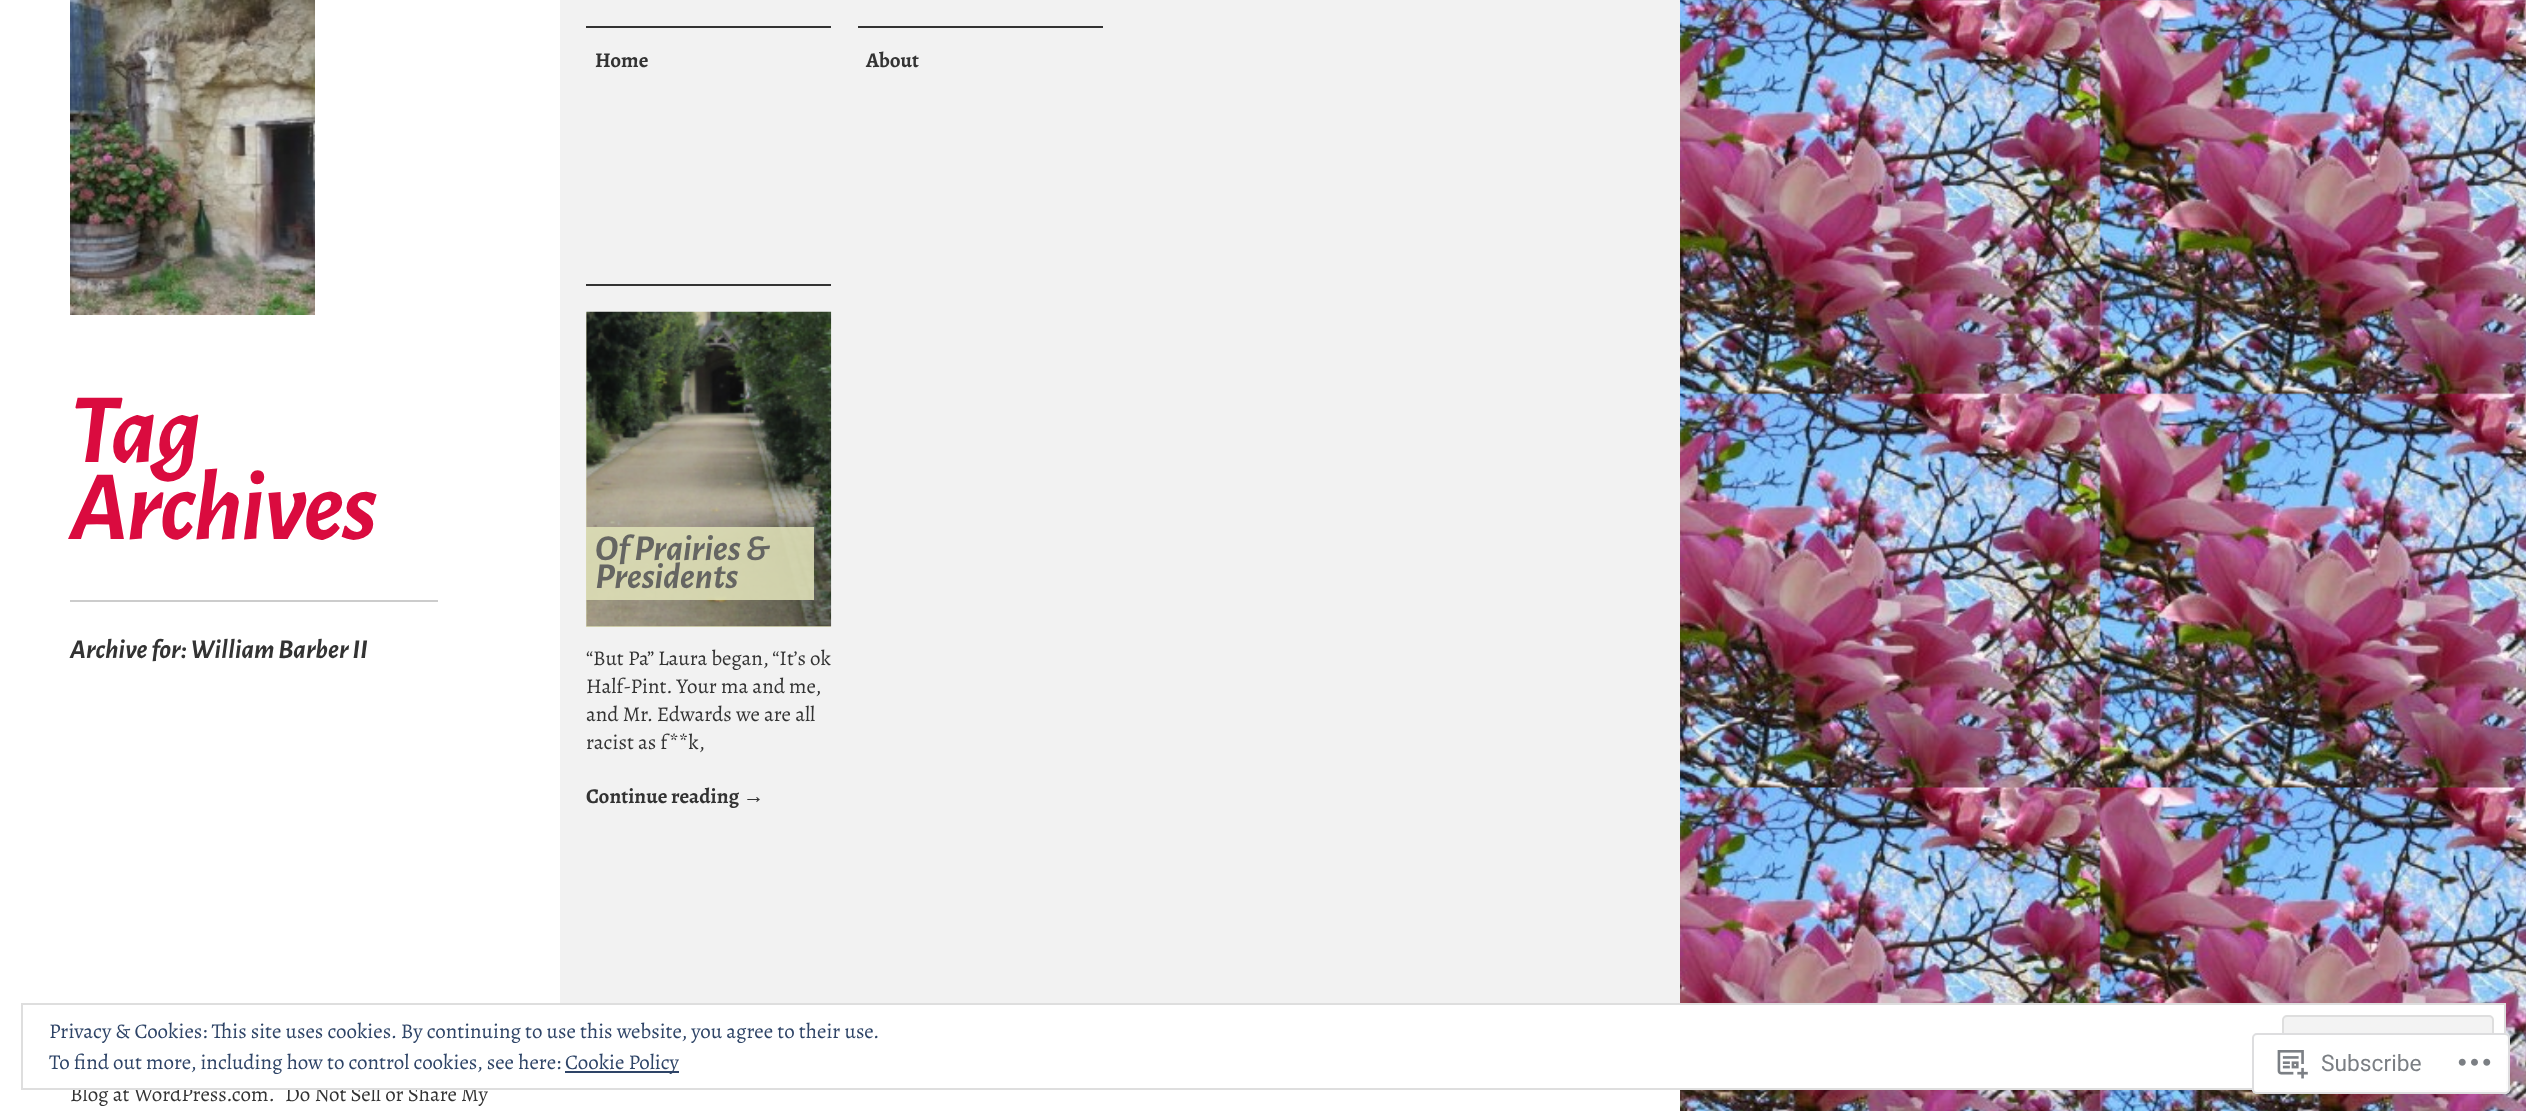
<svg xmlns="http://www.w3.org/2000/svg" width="2526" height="1111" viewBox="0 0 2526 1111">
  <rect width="100%" height="100%" fill="#ffffff"/>
  <image x="1680" y="0" width="846" height="1111" href="img1.png"/>
  <image x="70" y="0" width="245" height="315" href="img2.png"/>
  <rect x="70" y="600" width="368" height="2" fill="#cccccc"/>
  <text x="70" y="462" font-family="Alegreya Sans" font-size="100" font-weight="bold" font-style="italic" letter-spacing="-1.75" fill="#da0b3f">Tag</text>
  <text x="70" y="539" font-family="Alegreya Sans" font-size="100" font-weight="bold" font-style="italic" letter-spacing="-1.75" fill="#da0b3f">Archives</text>
  <text x="70" y="658" font-family="Alegreya Sans" font-size="27.25" font-weight="bold" font-style="italic" fill="#333333">Archive for: William Barber II</text>
  <rect x="560" y="0" width="1120" height="1003" fill="#f2f2f2"/>
  <rect x="586" y="26" width="245" height="2" fill="#333333"/>
  <text x="595" y="67" font-family="Alegreya" font-size="21" font-weight="bold" fill="#333333">Home</text>
  <rect x="858" y="26" width="245" height="2" fill="#333333"/>
  <text x="866" y="67" font-family="Alegreya" font-size="21" font-weight="bold" fill="#333333">About</text>
  <rect x="586" y="284" width="245" height="2" fill="#333333"/>
  <rect x="586" y="312" width="245" height="315" fill="#dddeb6"/>
  <image x="586" y="311" width="246" height="316" href="img3.png"/>
  <rect x="586" y="527" width="228" height="73" fill="#dddeb6" fill-opacity="0.9"/>
  <text x="595" y="560" font-family="Alegreya Sans" font-size="36.5" font-weight="bold" font-style="italic" fill="#656562">Of Prairies &amp;</text>
  <text x="595" y="588" font-family="Alegreya Sans" font-size="36.5" font-weight="bold" font-style="italic" fill="#656562">Presidents</text>
  <text x="586" y="665" font-family="Alegreya" font-size="21" fill="#333333">“But Pa” Laura began, “It’s ok</text>
  <text x="586" y="693" font-family="Alegreya" font-size="21" fill="#333333">Half-Pint. Your ma and me,</text>
  <text x="586" y="721" font-family="Alegreya" font-size="21" fill="#333333">and Mr. Edwards we are all</text>
  <text x="586" y="749" font-family="Alegreya" font-size="21" fill="#333333">racist as f**k,</text>
  <text x="586" y="803" font-family="Alegreya" font-size="21" font-weight="bold" fill="#333333">Continue reading</text>
  <text x="743" y="803" font-family="Liberation Serif" font-size="21" font-weight="bold" fill="#333333">→</text>
  <text x="70" y="1101" font-family="Alegreya" font-size="21" fill="#333333">Blog at WordPress.com.</text>
  <text x="285" y="1101" font-family="Alegreya" font-size="21" fill="#333333">Do Not Sell or Share My</text>
  <rect x="71" y="1005" width="2433" height="83" fill="#ffffff"/>
  <rect x="22" y="1004" width="2483" height="85" fill="none" stroke="#dedede" stroke-width="2"/>
  <text x="49" y="1038" font-family="Alegreya" font-size="21" fill="#2e4467">Privacy &amp; Cookies: This site uses cookies. By continuing to use this website, you agree to their use.</text>
  <rect x="2283" y="1016" width="210" height="42" rx="4" fill="#f3f3f3" stroke="#dedede" stroke-width="2"/>
  <text x="49" y="1069" font-family="Alegreya" font-size="21" fill="#2e4467">To find out more, including how to control cookies, see here:</text>
  <rect x="565" y="1071" width="114" height="2" fill="#2e4467"/>
  <text x="565" y="1069" font-family="Alegreya" font-size="21" fill="#2e4467">Cookie Policy</text>
  <rect x="2252" y="1033" width="258" height="61" rx="5" fill="#ffffff" fill-opacity="0.98"/>
  <rect x="2253" y="1034" width="256" height="59" rx="4" fill="none" stroke="#dcdcde" stroke-opacity="0.98" stroke-width="2"/>
  <image x="2277" y="1050" width="31" height="29" href="img4.png"/>
  <text x="2321" y="1071" font-family="Roboto" font-size="22.75" fill="#7b7f84">Subscribe</text>
  <image x="2458" y="1058" width="33" height="8" href="img5.png"/>
</svg>
